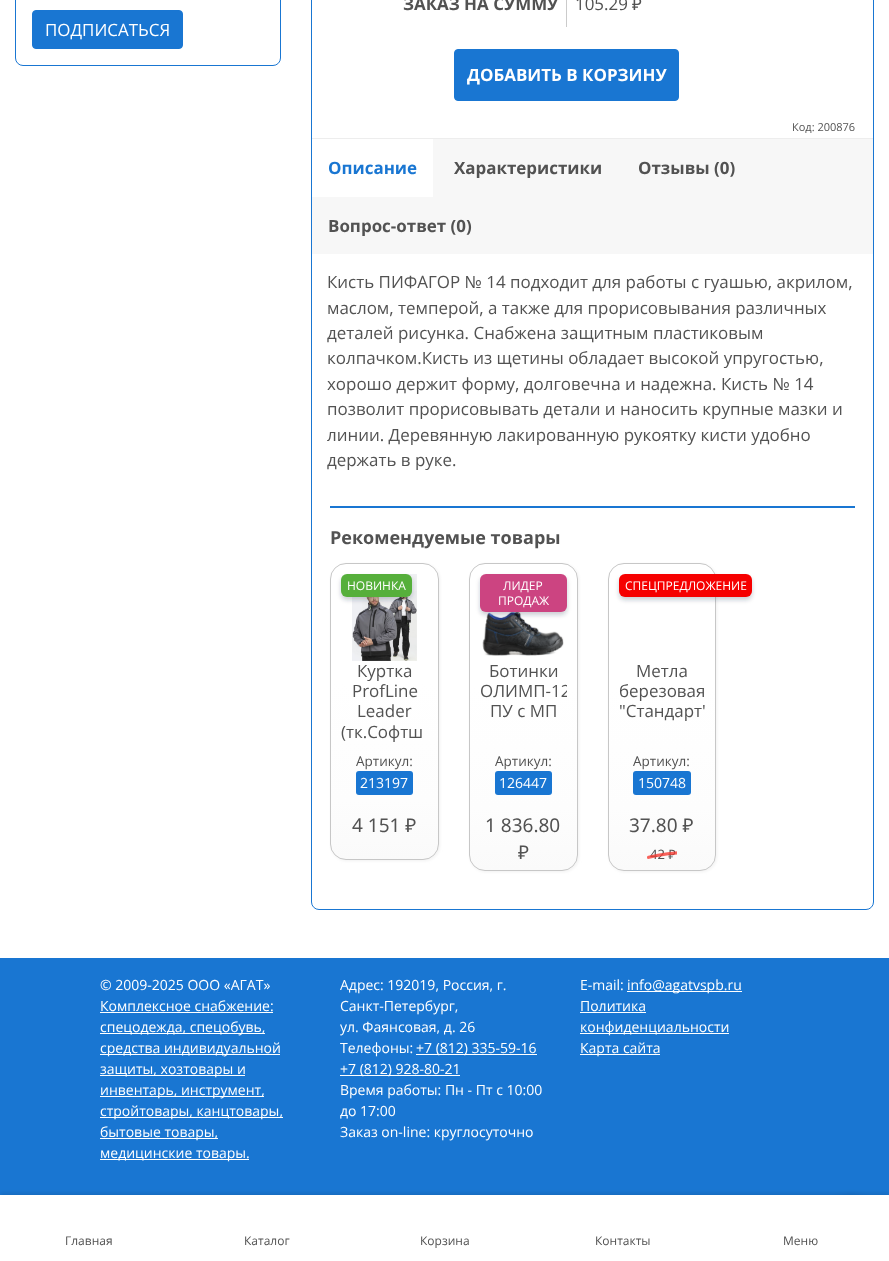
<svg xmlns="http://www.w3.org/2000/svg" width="889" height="1261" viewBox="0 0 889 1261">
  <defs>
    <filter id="blur1" x="-50%" y="-200%" width="200%" height="500%"><feGaussianBlur stdDeviation="1.5"/></filter>
    <clipPath id="clip1"><rect x="330" y="563" width="109" height="297" rx="16"/></clipPath>
    <linearGradient id="g1" gradientUnits="userSpaceOnUse" x1="385" y1="564" x2="385" y2="859"><stop offset="0.4" stop-color="#ffffff"/><stop offset="0.8" stop-color="#fdfdfd"/><stop offset="1" stop-color="#fafafa"/></linearGradient>
    <filter id="blur2" x="-50%" y="-200%" width="200%" height="500%"><feGaussianBlur stdDeviation="2"/></filter>
    <clipPath id="clip2"><rect x="469" y="563" width="109" height="308" rx="16"/></clipPath>
    <linearGradient id="g2" gradientUnits="userSpaceOnUse" x1="524" y1="564" x2="524" y2="870"><stop offset="0.4" stop-color="#ffffff"/><stop offset="0.8" stop-color="#fdfdfd"/><stop offset="1" stop-color="#fafafa"/></linearGradient>
    <clipPath id="clip3"><rect x="480" y="661" width="87" height="81"/></clipPath>
    <clipPath id="clip4"><rect x="608" y="563" width="108" height="308" rx="16"/></clipPath>
    <linearGradient id="g3" gradientUnits="userSpaceOnUse" x1="662" y1="564" x2="662" y2="870"><stop offset="0.4" stop-color="#ffffff"/><stop offset="0.8" stop-color="#fdfdfd"/><stop offset="1" stop-color="#fafafa"/></linearGradient>
    <clipPath id="clip5"><rect x="619" y="661" width="86" height="81"/></clipPath>
    <filter id="blur3" x="-50%" y="-200%" width="200%" height="500%"><feGaussianBlur stdDeviation="5.5"/></filter>
  </defs>
  <rect width="100%" height="100%" fill="#ffffff"/>
  <rect x="15.5" y="-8.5" width="265" height="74" rx="7.5" fill="none" stroke="#1976d2"/>
  <rect x="32.5" y="10.5" width="150" height="38" rx="3.5" fill="#1976d2" stroke="#1976d2"/>
  <text x="45" y="36" font-family="Open Sans" font-size="16.95" fill="#ffffff">ПОДПИСАТЬСЯ</text>
  <rect x="311.5" y="-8.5" width="562" height="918" rx="7.5" fill="none" stroke="#1976d2"/>
  <rect x="566" y="0" width="1" height="27" fill="#cbcbcb"/>
  <text x="403" y="10" font-family="Open Sans" font-size="16.95" font-weight="bold" fill="#525252">ЗАКАЗ НА СУММУ</text>
  <text x="575" y="10" font-family="Open Sans" font-size="16.95" fill="#525252">105.29</text>
  <text x="632" y="10" font-family="Noto Sans" font-size="16.95" fill="#525252">₽</text>
  <rect x="454.5" y="49.5" width="224" height="51" rx="3.5" fill="#1976d2" stroke="#1976d2"/>
  <text x="467" y="81" font-family="Open Sans" font-size="16.95" font-weight="bold" fill="#ffffff">ДОБАВИТЬ В КОРЗИНУ</text>
  <text x="792" y="131" font-family="Open Sans" font-size="11" fill="#525252">Код: 200876</text>
  <rect x="312" y="139" width="561" height="115" fill="#f7f7f7"/>
  <rect x="312" y="138" width="561" height="1" fill="#ededed"/>
  <rect x="312" y="139" width="121" height="58" fill="#ffffff"/>
  <text x="328" y="174" font-family="Open Sans" font-size="16.95" font-weight="bold" fill="#1976d2">Описание</text>
  <text x="454" y="174" font-family="Open Sans" font-size="16.95" font-weight="bold" fill="#525252">Характеристики</text>
  <text x="638" y="174" font-family="Open Sans" font-size="16.95" font-weight="bold" fill="#525252">Отзывы (0)</text>
  <text x="328" y="232" font-family="Open Sans" font-size="16.95" font-weight="bold" fill="#525252">Вопрос-ответ (0)</text>
  <text x="327" y="288" font-family="Open Sans" font-size="16.95" fill="#525252">Кисть ПИФАГОР № 14 подходит для работы с гуашью, акрилом,</text>
  <text x="327" y="314" font-family="Open Sans" font-size="16.95" fill="#525252">маслом, темперой, а также для прорисовывания различных</text>
  <text x="327" y="339" font-family="Open Sans" font-size="16.95" fill="#525252">деталей рисунка. Снабжена защитным пластиковым</text>
  <text x="327" y="364" font-family="Open Sans" font-size="16.95" fill="#525252">колпачком.Кисть из щетины обладает высокой упругостью,</text>
  <text x="327" y="390" font-family="Open Sans" font-size="16.95" fill="#525252">хорошо держит форму, долговечна и надежна. Кисть № 14</text>
  <text x="327" y="415" font-family="Open Sans" font-size="16.95" fill="#525252">позволит прорисовывать детали и наносить крупные мазки и</text>
  <text x="327" y="441" font-family="Open Sans" font-size="16.95" fill="#525252">линии. Деревянную лакированную рукоятку кисти удобно</text>
  <text x="327" y="466" font-family="Open Sans" font-size="16.95" fill="#525252">держать в руке.</text>
  <rect x="330" y="506" width="525" height="2" fill="#1976d2"/>
  <text x="330" y="544" font-family="Open Sans" font-size="18" font-weight="bold" fill="#525252">Рекомендуемые товары</text>
  <rect x="331" y="564" width="109" height="297" rx="16" fill="#f2f2f2" filter="url(#blur1)"/>
  <g clip-path="url(#clip1)">
    <rect x="330" y="564" width="109" height="295" fill="url(#g1)"/>
  </g>
  <rect x="330.5" y="563.5" width="108" height="296" rx="15.5" fill="none" stroke="#c7c7c7"/>
  <image x="352" y="574" width="65" height="87" href="img1.png"/>
  <rect x="341" y="577" width="71" height="23" rx="6" fill="#20364a" fill-opacity="0.23" filter="url(#blur2)"/>
  <rect x="341" y="574" width="71" height="23" rx="6" fill="#56af3b"/>
  <text x="347" y="590" font-family="Open Sans" font-size="12" fill="#ffffff">НОВИНКА</text>
  <text x="357" y="677" font-family="Open Sans" font-size="16.95" fill="#525252">Куртка</text>
  <text x="352" y="697" font-family="Open Sans" font-size="16.95" fill="#525252">ProfLine</text>
  <text x="357" y="717" font-family="Open Sans" font-size="16.95" fill="#525252">Leader</text>
  <text x="341" y="738" font-family="Open Sans" font-size="16.95" fill="#525252">(тк.Софтш</text>
  <text x="356" y="766" font-family="Open Sans" font-size="13.5" fill="#525252">Артикул:</text>
  <rect x="356" y="771" width="57" height="24" rx="3" fill="#1976d2"/>
  <text x="360" y="788" font-family="Open Sans" font-size="14" fill="#ffffff">213197</text>
  <text x="352" y="832" font-family="Noto Sans" font-size="19" fill="#525252">4 151 ₽</text>
  <rect x="470" y="564" width="109" height="308" rx="16" fill="#f2f2f2" filter="url(#blur1)"/>
  <g clip-path="url(#clip2)">
    <rect x="469" y="564" width="109" height="306" fill="url(#g2)"/>
  </g>
  <rect x="469.5" y="563.5" width="108" height="307" rx="15.5" fill="none" stroke="#c7c7c7"/>
  <image x="482" y="611" width="82" height="45" href="img2.png"/>
  <rect x="480" y="577" width="87" height="38" rx="6" fill="#20364a" fill-opacity="0.23" filter="url(#blur2)"/>
  <rect x="480" y="574" width="87" height="38" rx="6" fill="#cc4481"/>
  <text x="503" y="590" font-family="Open Sans" font-size="12" fill="#ffffff">ЛИДЕР</text>
  <text x="498" y="605" font-family="Open Sans" font-size="12" fill="#ffffff">ПРОДАЖ</text>
  <text x="489" y="677" font-family="Open Sans" font-size="16.95" fill="#525252">Ботинки</text>
  <g clip-path="url(#clip3)">
    <text x="480" y="697" font-family="Open Sans" font-size="16.95" fill="#525252">ОЛИМП-12</text>
  </g>
  <text x="490" y="717" font-family="Open Sans" font-size="16.95" fill="#525252">ПУ с МП</text>
  <text x="495" y="766" font-family="Open Sans" font-size="13.5" fill="#525252">Артикул:</text>
  <rect x="495" y="771" width="57" height="24" rx="3" fill="#1976d2"/>
  <text x="499" y="788" font-family="Open Sans" font-size="14" fill="#ffffff">126447</text>
  <text x="485" y="832" font-family="Noto Sans" font-size="19" fill="#525252">1 836.80</text>
  <text x="518" y="859" font-family="Noto Sans" font-size="19" fill="#525252">₽</text>
  <rect x="609" y="564" width="108" height="308" rx="16" fill="#f2f2f2" filter="url(#blur1)"/>
  <g clip-path="url(#clip4)">
    <rect x="608" y="564" width="108" height="306" fill="url(#g3)"/>
  </g>
  <rect x="608.5" y="563.5" width="107" height="307" rx="15.5" fill="none" stroke="#c7c7c7"/>
  <rect x="619" y="577" width="133" height="23" rx="6" fill="#20364a" fill-opacity="0.23" filter="url(#blur2)"/>
  <rect x="619" y="574" width="133" height="23" rx="6" fill="#f60000"/>
  <text x="625" y="590" font-family="Open Sans" font-size="12" fill="#ffffff">СПЕЦПРЕДЛОЖЕНИЕ</text>
  <text x="636" y="677" font-family="Open Sans" font-size="16.95" fill="#525252">Метла</text>
  <text x="619" y="697" font-family="Open Sans" font-size="16.95" fill="#525252">березовая</text>
  <g clip-path="url(#clip5)">
    <text x="619" y="717" font-family="Open Sans" font-size="16.95" fill="#525252">"Стандарт"</text>
  </g>
  <text x="633" y="766" font-family="Open Sans" font-size="13.5" fill="#525252">Артикул:</text>
  <rect x="633" y="771" width="58" height="24" rx="3" fill="#1976d2"/>
  <text x="638" y="788" font-family="Open Sans" font-size="14" fill="#ffffff">150748</text>
  <text x="629" y="832" font-family="Noto Sans" font-size="19" fill="#525252">37.80 ₽</text>
  <text x="650" y="859" font-family="Noto Sans" font-size="13" fill="#525252">42 ₽</text>
  <image x="647" y="851" width="30" height="8" href="img3.png"/>
  <rect x="0" y="958" width="889" height="237" fill="#1976d2"/>
  <text x="100" y="990" font-family="Open Sans" font-size="14" fill="#ffffff">© 2009-2025 ООО «АГАТ»</text>
  <text x="100" y="1011" font-family="Open Sans" font-size="14" fill="#ffffff">Комплексное снабжение:</text>
  <rect x="100" y="1012" width="173" height="1" fill="#ffffff"/>
  <rect x="100" y="1033" width="165" height="1" fill="#ffffff"/>
  <text x="100" y="1032" font-family="Open Sans" font-size="14" fill="#ffffff">спецодежда, спецобувь,</text>
  <rect x="100" y="1054" width="180" height="1" fill="#ffffff"/>
  <text x="100" y="1053" font-family="Open Sans" font-size="14" fill="#ffffff">средства индивидуальной</text>
  <rect x="100" y="1075" width="145" height="1" fill="#ffffff"/>
  <text x="100" y="1074" font-family="Open Sans" font-size="14" fill="#ffffff">защиты, хозтовары и</text>
  <rect x="100" y="1096" width="164" height="1" fill="#ffffff"/>
  <text x="100" y="1095" font-family="Open Sans" font-size="14" fill="#ffffff">инвентарь, инструмент,</text>
  <rect x="100" y="1117" width="183" height="1" fill="#ffffff"/>
  <text x="100" y="1116" font-family="Open Sans" font-size="14" fill="#ffffff">стройтовары, канцтовары,</text>
  <rect x="100" y="1138" width="118" height="1" fill="#ffffff"/>
  <text x="100" y="1137" font-family="Open Sans" font-size="14" fill="#ffffff">бытовые товары,</text>
  <rect x="100" y="1159" width="149" height="1" fill="#ffffff"/>
  <text x="100" y="1158" font-family="Open Sans" font-size="14" fill="#ffffff">медицинские товары.</text>
  <text x="340" y="990" font-family="Open Sans" font-size="14" fill="#ffffff">Адрес: 192019, Россия, г.</text>
  <text x="340" y="1011" font-family="Open Sans" font-size="14" fill="#ffffff">Санкт-Петербург,</text>
  <text x="340" y="1032" font-family="Open Sans" font-size="14" fill="#ffffff">ул. Фаянсовая, д. 26</text>
  <text x="340" y="1053" font-family="Open Sans" font-size="14" fill="#ffffff">Телефоны:</text>
  <rect x="416" y="1054" width="121" height="1" fill="#ffffff"/>
  <text x="416" y="1053" font-family="Open Sans" font-size="14" fill="#ffffff">+7 (812) 335-59-16</text>
  <rect x="340" y="1075" width="120" height="1" fill="#ffffff"/>
  <text x="340" y="1074" font-family="Open Sans" font-size="14" fill="#ffffff">+7 (812) 928-80-21</text>
  <text x="340" y="1095" font-family="Open Sans" font-size="14" fill="#ffffff">Время работы: Пн - Пт с 10:00</text>
  <text x="340" y="1116" font-family="Open Sans" font-size="14" fill="#ffffff">до 17:00</text>
  <text x="340" y="1137" font-family="Open Sans" font-size="14" fill="#ffffff">Заказ on-line: круглосуточно</text>
  <text x="580" y="990" font-family="Open Sans" font-size="14" fill="#ffffff">E-mail:</text>
  <rect x="627" y="991" width="115" height="1" fill="#ffffff"/>
  <text x="627" y="990" font-family="Open Sans" font-size="14" fill="#ffffff">info@agatvspb.ru</text>
  <text x="580" y="1011" font-family="Open Sans" font-size="14" fill="#ffffff">Политика</text>
  <rect x="580" y="1012" width="66" height="1" fill="#ffffff"/>
  <rect x="580" y="1033" width="149" height="1" fill="#ffffff"/>
  <text x="580" y="1032" font-family="Open Sans" font-size="14" fill="#ffffff">конфиденциальности</text>
  <rect x="580" y="1054" width="80" height="1" fill="#ffffff"/>
  <text x="580" y="1053" font-family="Open Sans" font-size="14" fill="#ffffff">Карта сайта</text>
  <rect x="0" y="1193" width="889" height="66" fill="#000000" fill-opacity="0.1" filter="url(#blur2)"/>
  <rect x="829" y="1201" width="44" height="44" rx="22" fill="#323232" fill-opacity="0.4" filter="url(#blur3)"/>
  <rect x="0" y="1195" width="889" height="66" fill="#ffffff"/>
  <text x="65" y="1245" font-family="Open Sans" font-size="12" fill="#525252">Главная</text>
  <text x="244" y="1245" font-family="Open Sans" font-size="12" fill="#525252">Каталог</text>
  <text x="420" y="1245" font-family="Open Sans" font-size="12" fill="#525252">Корзина</text>
  <text x="595" y="1245" font-family="Open Sans" font-size="12" fill="#525252">Контакты</text>
  <text x="783" y="1245" font-family="Open Sans" font-size="12" fill="#525252">Меню</text>
</svg>
